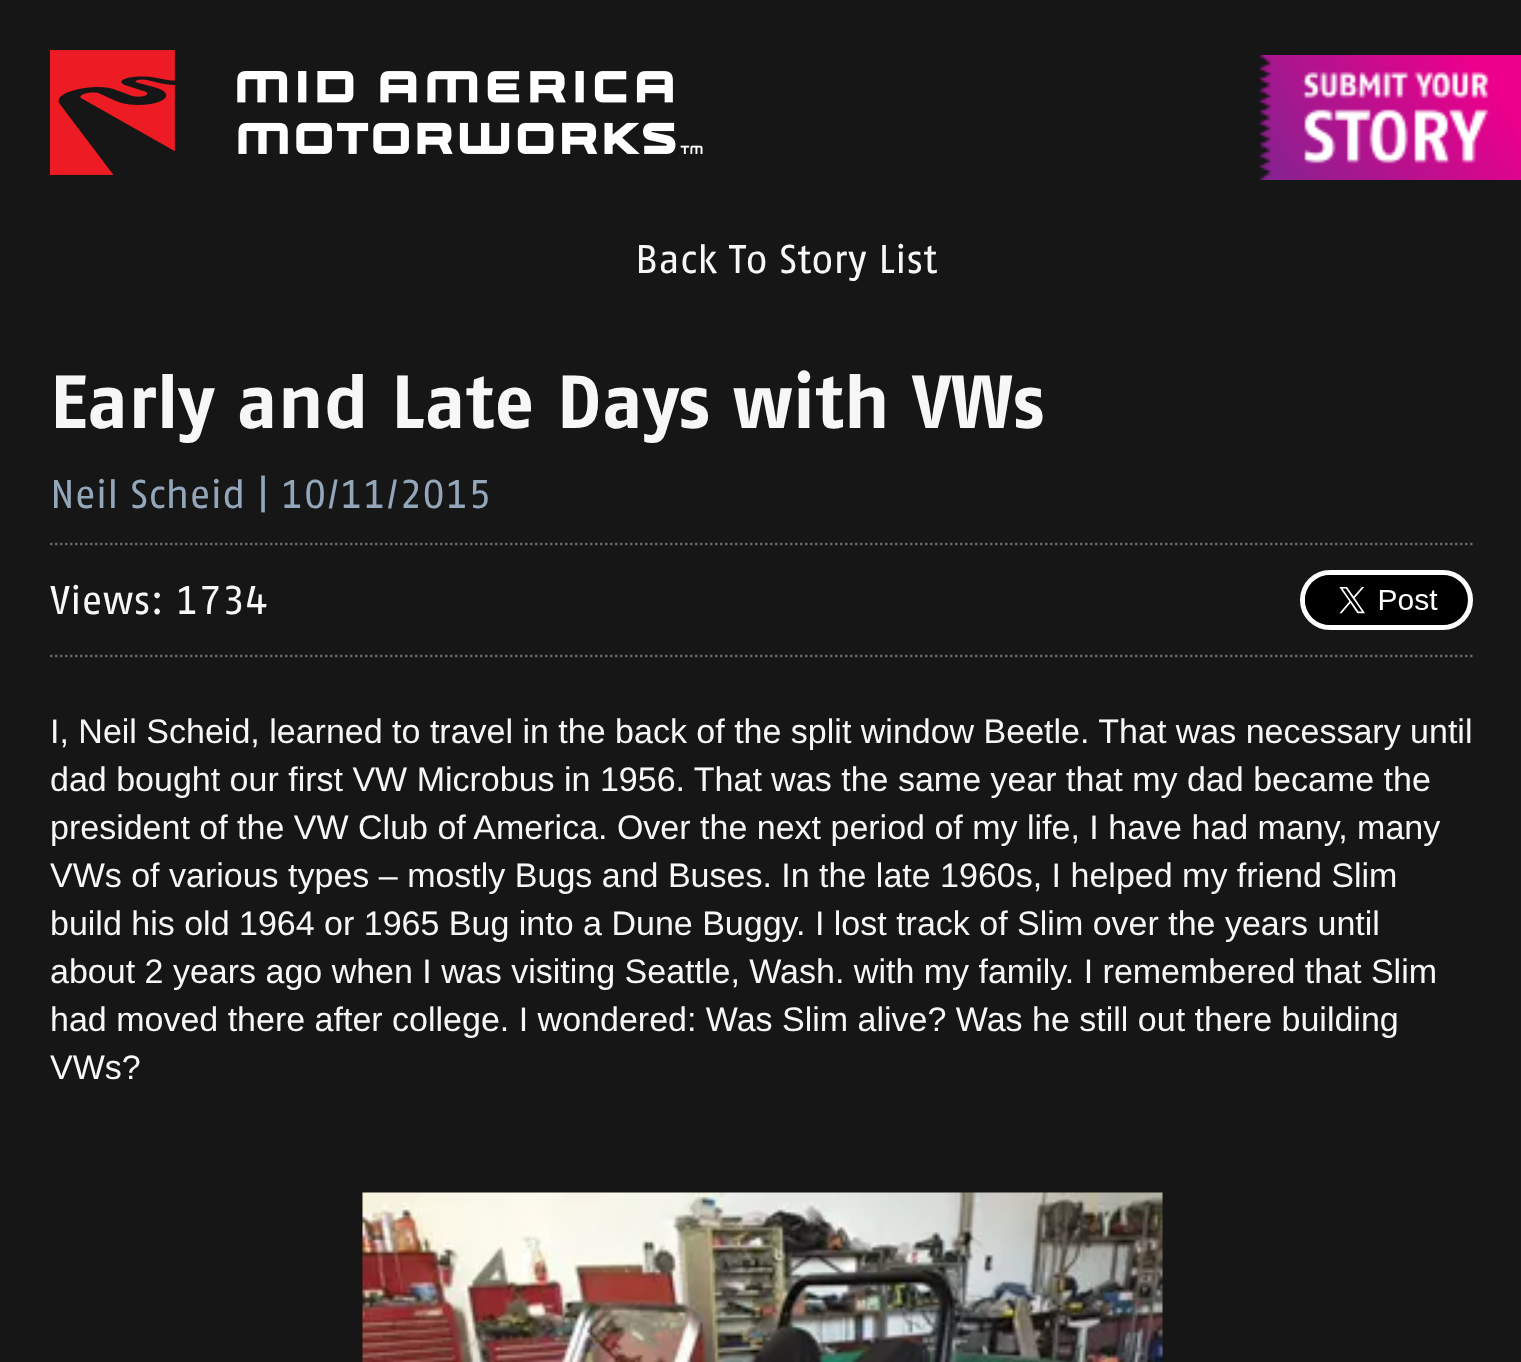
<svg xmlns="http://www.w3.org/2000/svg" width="1521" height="1362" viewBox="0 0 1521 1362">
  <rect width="100%" height="100%" fill="#161616"/>
  <image x="50" y="50" width="653" height="125" href="img1.png"/>
  <image x="1260" y="55" width="261" height="125" href="img2.png"/>
  <text x="635" y="273" font-family="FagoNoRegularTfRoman" font-size="40" fill="#f7f7f7">Back To Story List</text>
  <text x="50" y="428" font-family="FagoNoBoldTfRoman" font-size="75" font-weight="bold" fill="#f7f7f7">Early and Late Days with VWs</text>
  <text x="50" y="508" font-family="FagoNoRegularTfRoman" font-size="40" fill="#93a6ba">Neil Scheid | 10/11/2015</text>
  <path d="M50 544H1472.5" fill="none" stroke="#666666" stroke-width="2.5" stroke-dasharray="2.5 2.5"/>
  <path d="M50 656H1472.5" fill="none" stroke="#666666" stroke-width="2.5" stroke-dasharray="2.5 2.5"/>
  <text x="50" y="614" font-family="FagoNoRegularTfRoman" font-size="40" fill="#f7f7f7">Views: 1734</text>
  <rect x="1302.5" y="572.5" width="168" height="55" rx="27.5" fill="none" stroke="#ffffff" stroke-width="5"/>
  <image x="1305" y="575" width="163" height="50" href="img3.png"/>
  <text x="50" y="743" font-family="Liberation Sans" font-size="34" fill="#f7f7f7">I, Neil Scheid, learned to travel in the back of the split window Beetle. That was necessary until</text>
  <text x="50" y="791" font-family="Liberation Sans" font-size="34" fill="#f7f7f7">dad bought our first VW Microbus in 1956. That was the same year that my dad became the</text>
  <text x="50" y="839" font-family="Liberation Sans" font-size="34" fill="#f7f7f7">president of the VW Club of America. Over the next period of my life, I have had many, many</text>
  <text x="50" y="887" font-family="Liberation Sans" font-size="34" fill="#f7f7f7">VWs of various types – mostly Bugs and Buses. In the late 1960s, I helped my friend Slim</text>
  <text x="50" y="935" font-family="Liberation Sans" font-size="34" fill="#f7f7f7">build his old 1964 or 1965 Bug into a Dune Buggy. I lost track of Slim over the years until</text>
  <text x="50" y="983" font-family="Liberation Sans" font-size="34" fill="#f7f7f7">about 2 years ago when I was visiting Seattle, Wash. with my family. I remembered that Slim</text>
  <text x="50" y="1031" font-family="Liberation Sans" font-size="34" fill="#f7f7f7">had moved there after college. I wondered: Was Slim alive? Was he still out there building</text>
  <text x="50" y="1079" font-family="Liberation Sans" font-size="34" fill="#f7f7f7">VWs?</text>
  <image x="362" y="1192" width="801" height="170" href="img4.png"/>
</svg>
